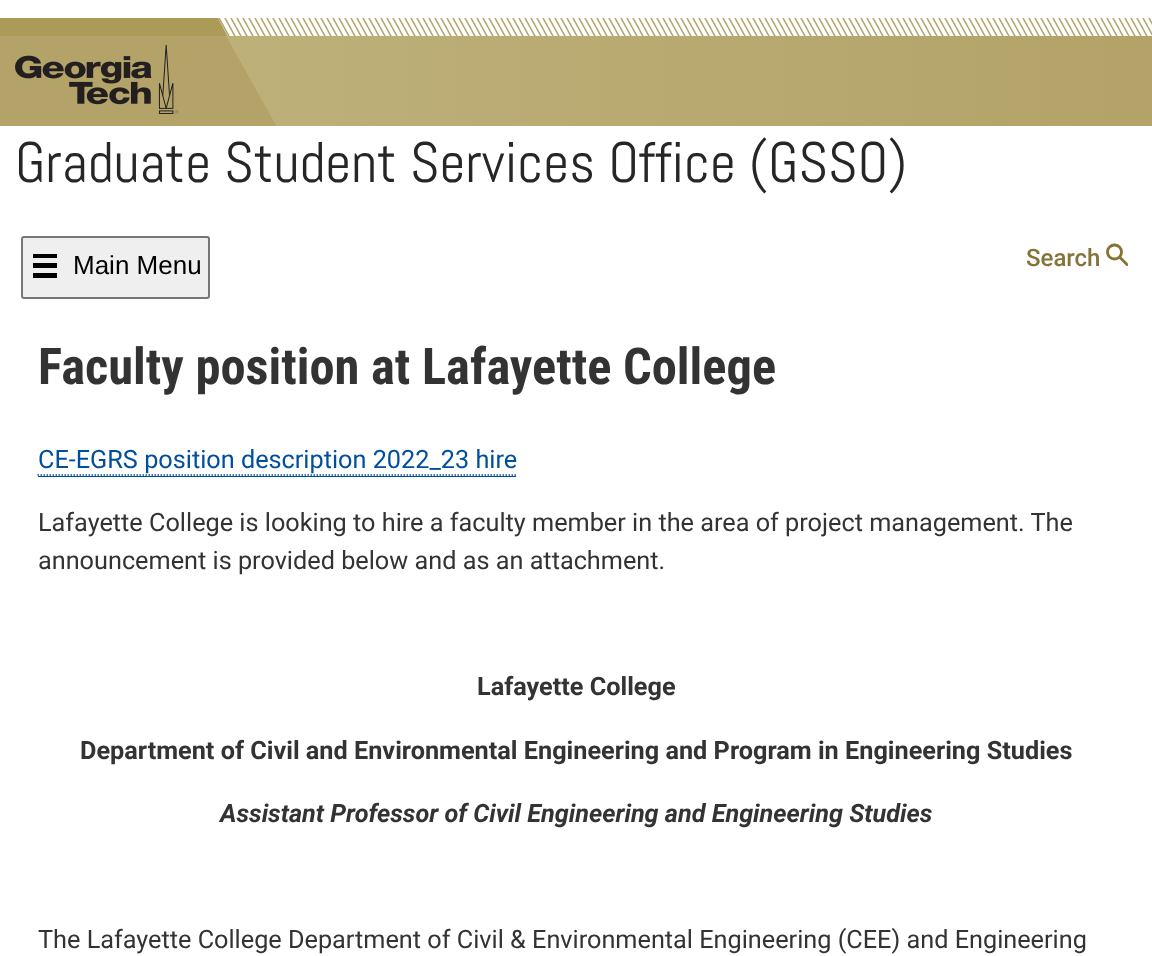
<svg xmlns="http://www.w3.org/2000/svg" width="1152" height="956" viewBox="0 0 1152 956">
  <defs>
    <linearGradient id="g1" gradientUnits="userSpaceOnUse" x1="1152" y1="115" x2="0" y2="115"><stop offset="0" stop-color="#b3a369"/><stop offset="1" stop-color="#bfb37c"/></linearGradient>
    <clipPath id="clip1"><rect x="0" y="18" width="234" height="18"/></clipPath>
    <clipPath id="clip2"><rect x="1106" y="243" width="22" height="23"/></clipPath>
  </defs>
  <rect width="100%" height="100%" fill="#ffffff"/>
  <rect x="226" y="36" width="926" height="90" fill="url(#g1)"/>
  <image x="218" y="18" width="934" height="18" href="img1.png"/>
  <g clip-path="url(#clip1)">
    <path d="M-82 18V48H234L218 18Z" fill="#ac9a58"/>
  </g>
  <rect x="0" y="36" width="210" height="90" fill="#b3a369"/>
  <image x="15" y="45" width="164" height="69" href="img2.png"/>
  <path d="M210 36H226L310 186H210Z" fill="#b3a369"/>
  <rect x="210" y="126" width="100" height="60" fill="#ffffff"/>
  <text x="15" y="182" font-family="Abel" font-size="57" fill="#262626">Graduate Student Services Office (GSSO)</text>
  <rect x="22" y="237" width="187" height="61" rx="2" fill="#efefef" stroke="#767676" stroke-width="2"/>
  <rect x="33" y="254" width="24" height="4" fill="#000000"/>
  <rect x="33" y="263" width="24" height="5" fill="#000000"/>
  <rect x="33" y="273" width="24" height="5" fill="#000000"/>
  <text x="73" y="274" font-family="Liberation Sans" font-size="26" fill="#000000">Main Menu</text>
  <text x="1026" y="266" font-family="Roboto" font-size="24" font-weight="500" fill="#857437">Search</text>
  <circle cx="1114.5" cy="252" r="7" fill="none" stroke="#867437" stroke-width="2.8"/>
  <g clip-path="url(#clip2)">
    <path d="M1119 256.5L1128 265.5" fill="none" stroke="#867437" stroke-width="2.8"/>
  </g>
  <text x="38" y="384" font-family="Roboto Condensed" font-size="50.5" font-weight="bold" fill="#333333">Faculty position at Lafayette College</text>
  <text x="38" y="468" font-family="Roboto" font-size="25.25" fill="#004f9f">CE-EGRS position description 2022_23 hire</text>
  <rect x="38" y="476" width="478" height="1" fill="#004f9f"/>
  <path d="M37.5 475H516" fill="none" stroke="#004f9f" stroke-width="1.5" stroke-dasharray="1.5 1.5"/>
  <text x="38" y="531" font-family="Roboto" font-size="25.25" fill="#333333">Lafayette College is looking to hire a faculty member in the area of project management. The</text>
  <text x="38" y="569" font-family="Roboto" font-size="25.25" fill="#333333">announcement is provided below and as an attachment.</text>
  <text x="477" y="695" font-family="Roboto" font-size="25.25" font-weight="bold" fill="#333333">Lafayette College</text>
  <text x="80" y="759" font-family="Roboto" font-size="25.25" font-weight="bold" fill="#333333">Department of Civil and Environmental Engineering and Program in Engineering Studies</text>
  <text x="220" y="822" font-family="Roboto" font-size="25.25" font-weight="bold" font-style="italic" fill="#333333">Assistant Professor of Civil Engineering and Engineering Studies</text>
  <text x="38" y="948" font-family="Roboto" font-size="25.25" fill="#333333">The Lafayette College Department of Civil &amp; Environmental Engineering (CEE) and Engineering</text>
</svg>
